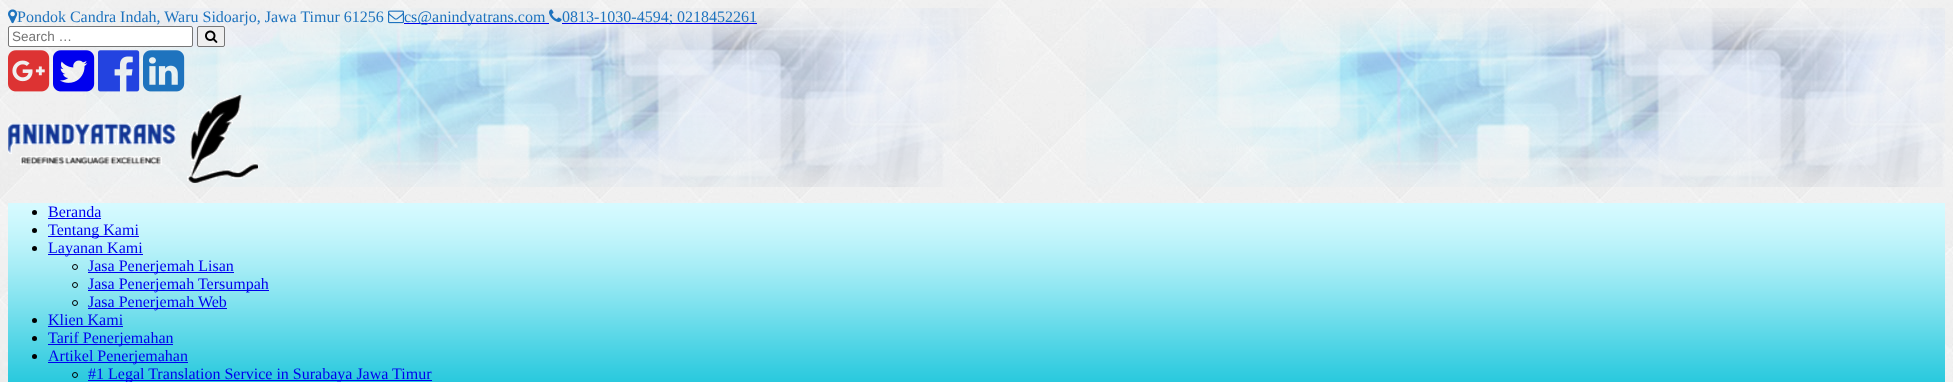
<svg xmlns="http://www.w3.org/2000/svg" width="1953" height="382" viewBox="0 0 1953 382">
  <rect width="100%" height="100%" fill="#ffffff"/>
  <image x="0" y="0" width="1953" height="382" href="img1.png"/>
  <image x="86" y="8" width="1859" height="179" href="img2.png"/>
  <image x="8" y="9" width="10" height="15" href="img3.png"/>
  <text x="17" y="22" font-family="Liberation Serif" font-size="16" fill="#1e73be">Pondok Candra Indah, Waru Sidoarjo, Jawa Timur 61256</text>
  <image x="388" y="10" width="16" height="14" href="img4.png"/>
  <rect x="404" y="23" width="141" height="1" fill="#0000ee"/>
  <text x="404" y="22" font-family="Liberation Serif" font-size="16" fill="#1e73be">cs@anindyatrans.com</text>
  <rect x="545" y="23" width="4" height="1" fill="#0000ee"/>
  <image x="549" y="9" width="13" height="13" href="img5.png"/>
  <rect x="562" y="23" width="195" height="1" fill="#0000ee"/>
  <text x="562" y="22" font-family="Liberation Serif" font-size="16" fill="#1e73be">0813-1030-4594; 0218452261</text>
  <rect x="8.5" y="26.5" width="184" height="20" rx="1.5" fill="#ffffff" stroke="#767676"/>
  <text x="12" y="41" font-family="Liberation Sans" font-size="13.5" fill="#757575">Search …</text>
  <rect x="197.5" y="26.5" width="27" height="20" rx="1.5" fill="#efefef" stroke="#767676"/>
  <image x="205" y="30" width="13" height="13" href="img6.png"/>
  <image x="8" y="50" width="42" height="42" href="img7.png"/>
  <image x="53" y="50" width="42" height="42" href="img8.png"/>
  <image x="98" y="50" width="42" height="42" href="img9.png"/>
  <image x="143" y="50" width="42" height="42" href="img10.png"/>
  <image x="8" y="95" width="250" height="88" href="img11.png"/>
  <image x="8" y="203" width="1937" height="179" href="img12.png"/>
  <circle cx="34.5" cy="212.5" r="2.5" fill="#000000"/>
  <text x="48" y="217" font-family="Liberation Serif" font-size="16" fill="#0000ee">Beranda</text>
  <rect x="48" y="218" width="53" height="1" fill="#0000ee"/>
  <circle cx="34.5" cy="230.5" r="2.5" fill="#000000"/>
  <rect x="48" y="236" width="91" height="1" fill="#0000ee"/>
  <text x="48" y="235" font-family="Liberation Serif" font-size="16" fill="#0000ee">Tentang Kami</text>
  <circle cx="34.5" cy="248.5" r="2.5" fill="#000000"/>
  <rect x="48" y="254" width="95" height="1" fill="#0000ee"/>
  <text x="48" y="253" font-family="Liberation Serif" font-size="16" fill="#0000ee">Layanan Kami</text>
  <circle cx="75" cy="267" r="2.5" fill="none" stroke="#000000"/>
  <rect x="88" y="272" width="146" height="1" fill="#0000ee"/>
  <text x="88" y="271" font-family="Liberation Serif" font-size="16" fill="#0000ee">Jasa Penerjemah Lisan</text>
  <circle cx="75" cy="285" r="2.5" fill="none" stroke="#000000"/>
  <rect x="88" y="290" width="181" height="1" fill="#0000ee"/>
  <text x="88" y="289" font-family="Liberation Serif" font-size="16" fill="#0000ee">Jasa Penerjemah Tersumpah</text>
  <circle cx="75" cy="303" r="2.5" fill="none" stroke="#000000"/>
  <rect x="88" y="308" width="139" height="1" fill="#0000ee"/>
  <text x="88" y="307" font-family="Liberation Serif" font-size="16" fill="#0000ee">Jasa Penerjemah Web</text>
  <circle cx="34.5" cy="320.5" r="2.5" fill="#000000"/>
  <text x="48" y="325" font-family="Liberation Serif" font-size="16" fill="#0000ee">Klien Kami</text>
  <rect x="48" y="326" width="75" height="1" fill="#0000ee"/>
  <circle cx="34.5" cy="338.5" r="2.5" fill="#000000"/>
  <rect x="48" y="344" width="125" height="1" fill="#0000ee"/>
  <text x="48" y="343" font-family="Liberation Serif" font-size="16" fill="#0000ee">Tarif Penerjemahan</text>
  <circle cx="34.5" cy="356.5" r="2.5" fill="#000000"/>
  <rect x="48" y="362" width="140" height="1" fill="#0000ee"/>
  <text x="48" y="361" font-family="Liberation Serif" font-size="16" fill="#0000ee">Artikel Penerjemahan</text>
  <circle cx="75" cy="375" r="2.5" fill="none" stroke="#000000"/>
  <rect x="88" y="380" width="344" height="1" fill="#0000ee"/>
  <text x="88" y="379" font-family="Liberation Serif" font-size="16" fill="#0000ee">#1 Legal Translation Service in Surabaya Jawa Timur</text>
</svg>
